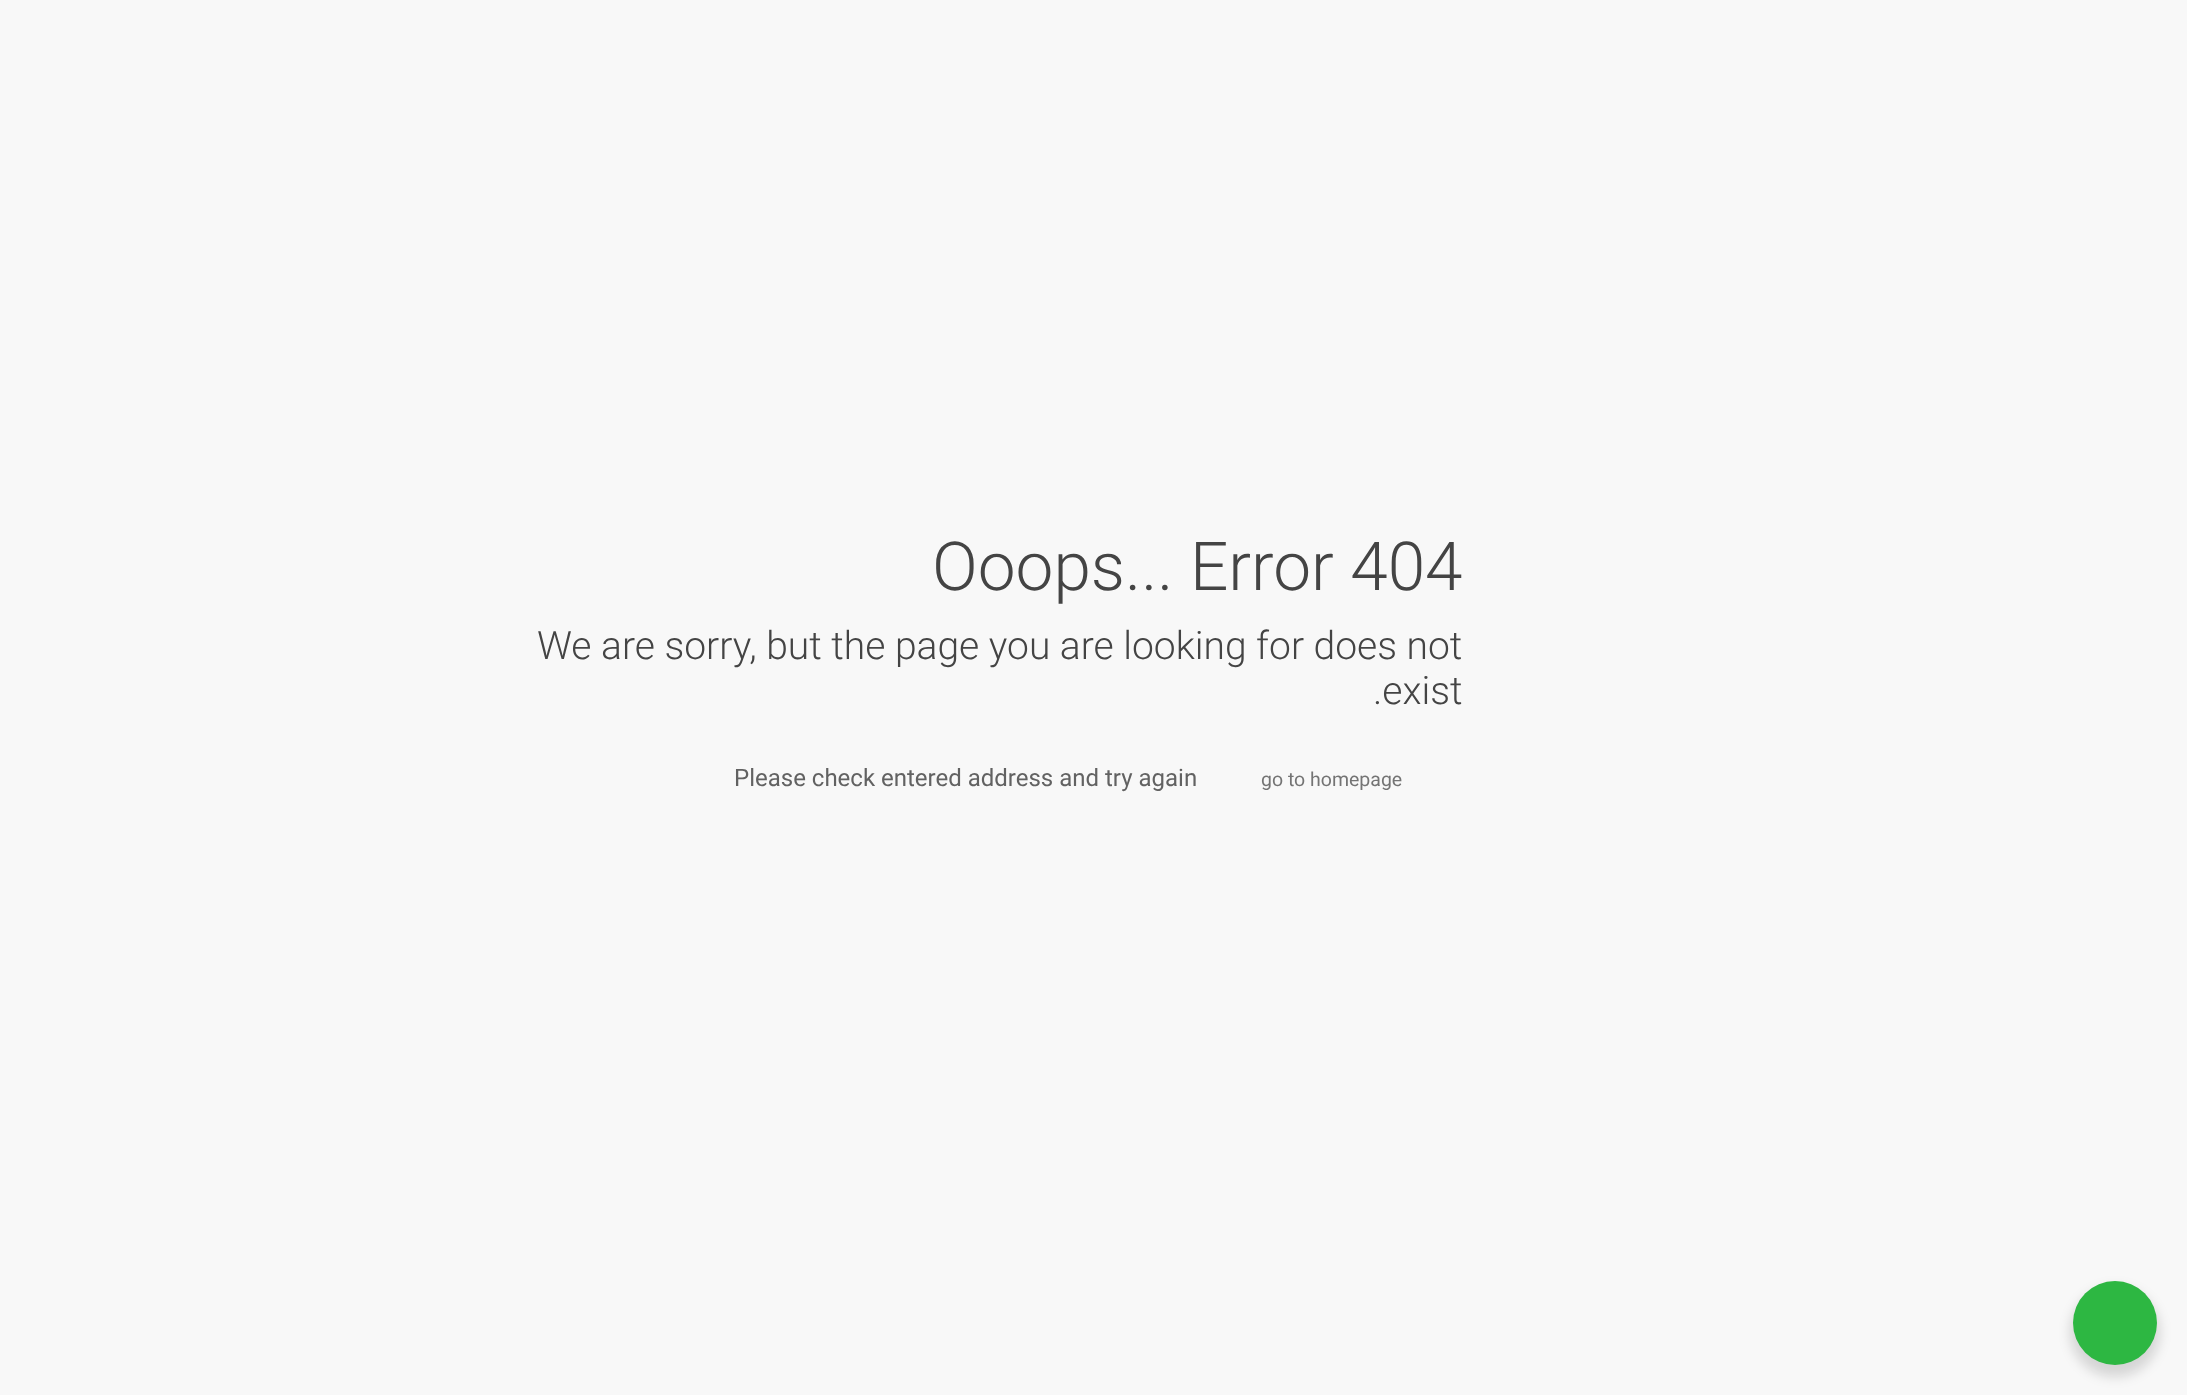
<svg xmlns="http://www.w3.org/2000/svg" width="2187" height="1395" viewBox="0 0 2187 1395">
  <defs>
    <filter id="blur1" x="-50%" y="-200%" width="200%" height="500%"><feGaussianBlur stdDeviation="6"/></filter>
  </defs>
  <rect width="100%" height="100%" fill="#f8f8f8"/>
  <text x="932" y="590" font-family="Roboto" font-size="67.5" font-weight="300" fill="#444444">Ooops... Error 404</text>
  <text x="537" y="659" font-family="Roboto" font-size="39" font-weight="300" fill="#444444">We are sorry, but the page you are looking for does not</text>
  <text x="1373" y="704" font-family="Roboto" font-size="39" font-weight="300" fill="#444444">.exist</text>
  <text x="734" y="786" font-family="Roboto" font-size="24" fill="#626262">Please check entered address and try again</text>
  <text x="1261" y="786" font-family="Roboto" font-size="19.5" fill="#747474">go to homepage</text>
  <rect x="2070" y="1287" width="90" height="90" rx="45" fill="#000000" fill-opacity="0.14" filter="url(#blur1)"/>
  <circle cx="2115" cy="1323" r="42" fill="#2db742"/>
</svg>
